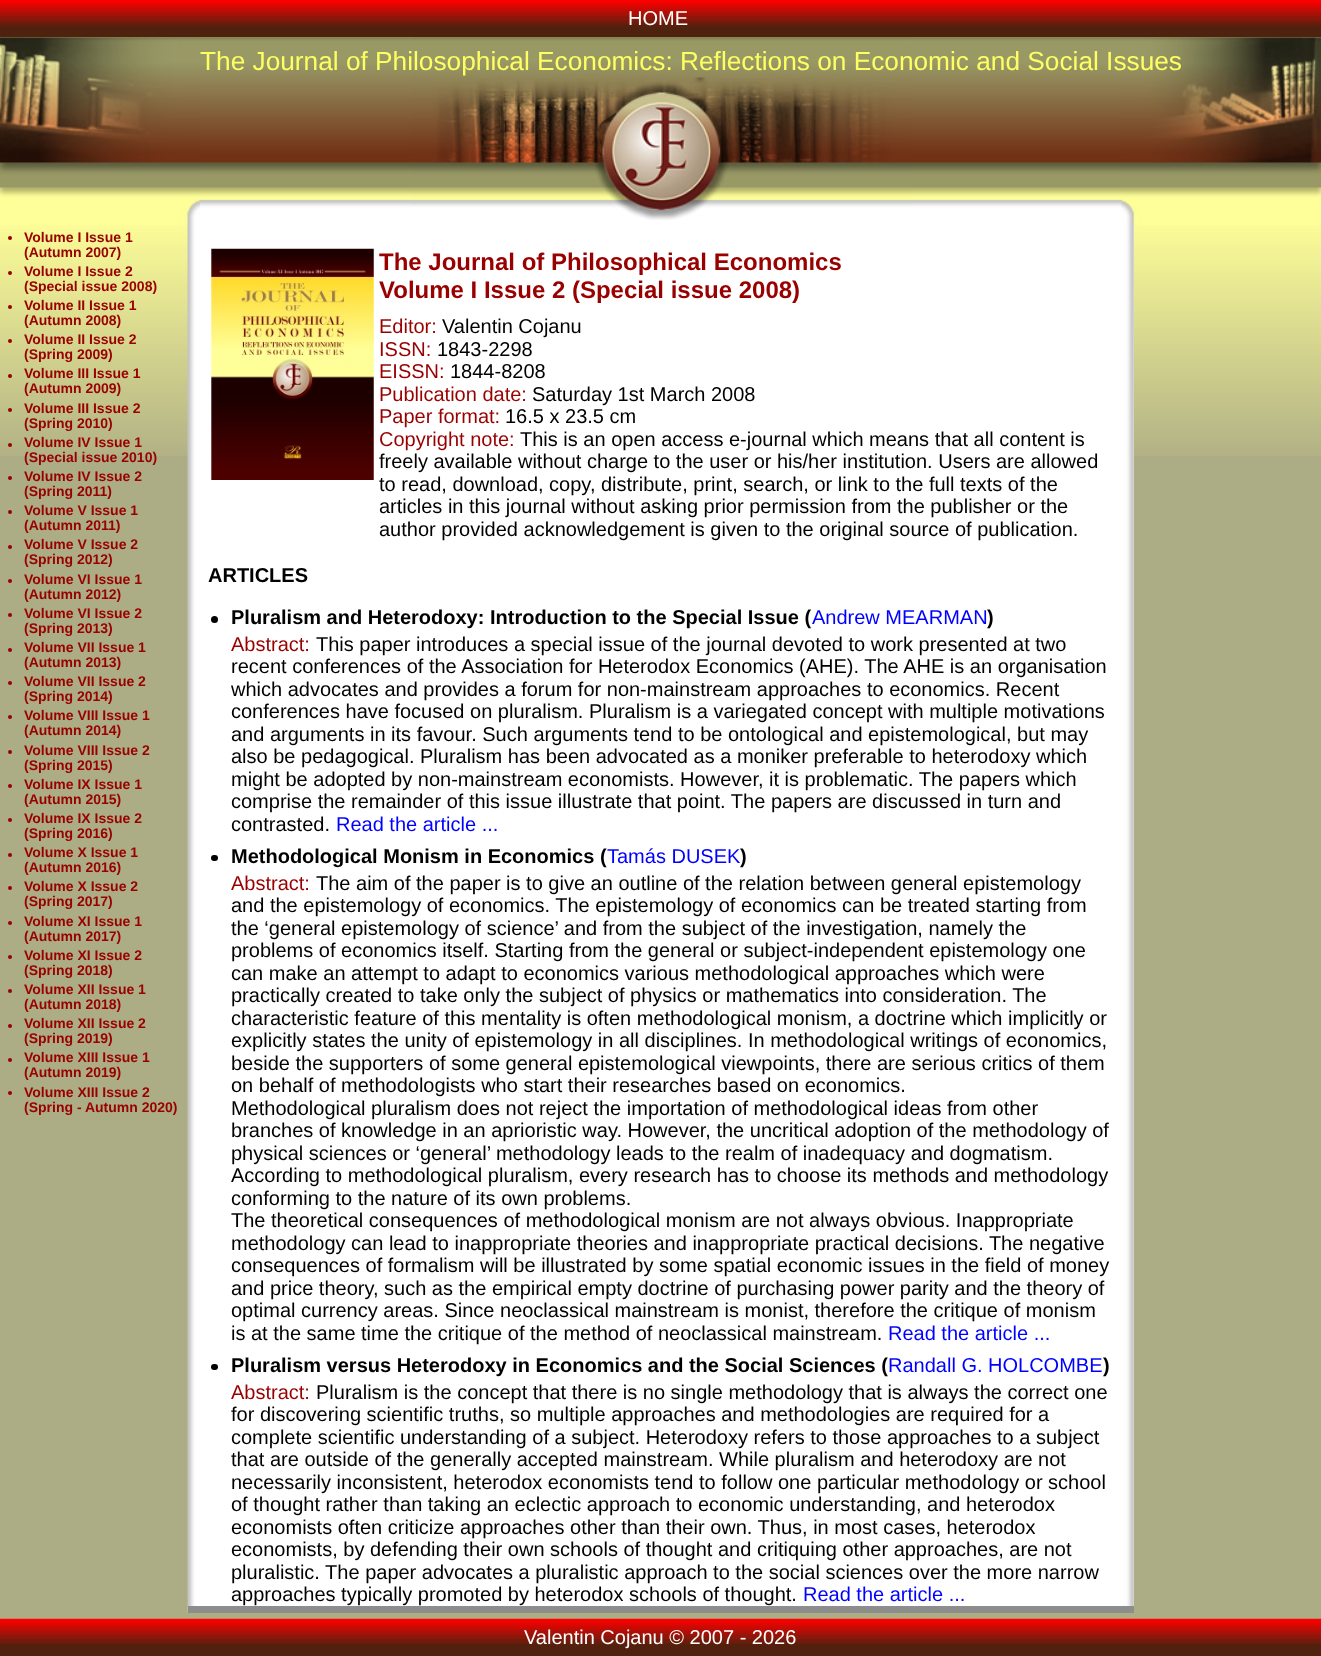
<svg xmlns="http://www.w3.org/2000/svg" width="1321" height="1656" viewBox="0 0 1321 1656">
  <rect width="100%" height="100%" fill="#adad85"/>
  <image x="0" y="37" width="1321" height="419" href="img1.png"/>
  <image x="0" y="0" width="1321" height="38" href="img2.png"/>
  <text x="628" y="25" font-family="Liberation Sans" font-size="20" fill="#ffffff">HOME</text>
  <image x="0" y="37" width="1321" height="188" href="img3.png"/>
  <image x="0" y="37" width="200" height="188" href="img4.png"/>
  <image x="411" y="37" width="501" height="183" href="img5.png"/>
  <image x="1121" y="37" width="200" height="188" href="img6.png"/>
  <text x="200" y="70" font-family="Liberation Sans" font-size="26.25" fill="#fdff62">The Journal of Philosophical Economics: Reflections on Economic and Social Issues</text>
  <circle cx="10" cy="238" r="2" fill="#990000"/>
  <text x="24" y="242" font-family="Liberation Sans" font-size="14" font-weight="bold" fill="#990000">Volume I Issue 1</text>
  <text x="24" y="257" font-family="Liberation Sans" font-size="14" font-weight="bold" fill="#990000">(Autumn 2007)</text>
  <circle cx="10" cy="273" r="2" fill="#990000"/>
  <text x="24" y="276" font-family="Liberation Sans" font-size="14" font-weight="bold" fill="#990000">Volume I Issue 2</text>
  <text x="24" y="291" font-family="Liberation Sans" font-size="14" font-weight="bold" fill="#990000">(Special issue 2008)</text>
  <circle cx="10" cy="307" r="2" fill="#990000"/>
  <text x="24" y="310" font-family="Liberation Sans" font-size="14" font-weight="bold" fill="#990000">Volume II Issue 1</text>
  <text x="24" y="325" font-family="Liberation Sans" font-size="14" font-weight="bold" fill="#990000">(Autumn 2008)</text>
  <circle cx="10" cy="341" r="2" fill="#990000"/>
  <text x="24" y="344" font-family="Liberation Sans" font-size="14" font-weight="bold" fill="#990000">Volume II Issue 2</text>
  <text x="24" y="359" font-family="Liberation Sans" font-size="14" font-weight="bold" fill="#990000">(Spring 2009)</text>
  <circle cx="10" cy="376" r="2" fill="#990000"/>
  <text x="24" y="378" font-family="Liberation Sans" font-size="14" font-weight="bold" fill="#990000">Volume III Issue 1</text>
  <text x="24" y="393" font-family="Liberation Sans" font-size="14" font-weight="bold" fill="#990000">(Autumn 2009)</text>
  <circle cx="10" cy="410" r="2" fill="#990000"/>
  <text x="24" y="413" font-family="Liberation Sans" font-size="14" font-weight="bold" fill="#990000">Volume III Issue 2</text>
  <text x="24" y="428" font-family="Liberation Sans" font-size="14" font-weight="bold" fill="#990000">(Spring 2010)</text>
  <circle cx="10" cy="445" r="2" fill="#990000"/>
  <text x="24" y="447" font-family="Liberation Sans" font-size="14" font-weight="bold" fill="#990000">Volume IV Issue 1</text>
  <text x="24" y="462" font-family="Liberation Sans" font-size="14" font-weight="bold" fill="#990000">(Special issue 2010)</text>
  <circle cx="10" cy="478" r="2" fill="#990000"/>
  <text x="24" y="481" font-family="Liberation Sans" font-size="14" font-weight="bold" fill="#990000">Volume IV Issue 2</text>
  <text x="24" y="496" font-family="Liberation Sans" font-size="14" font-weight="bold" fill="#990000">(Spring 2011)</text>
  <circle cx="10" cy="512" r="2" fill="#990000"/>
  <text x="24" y="515" font-family="Liberation Sans" font-size="14" font-weight="bold" fill="#990000">Volume V Issue 1</text>
  <text x="24" y="530" font-family="Liberation Sans" font-size="14" font-weight="bold" fill="#990000">(Autumn 2011)</text>
  <circle cx="10" cy="547" r="2" fill="#990000"/>
  <text x="24" y="549" font-family="Liberation Sans" font-size="14" font-weight="bold" fill="#990000">Volume V Issue 2</text>
  <text x="24" y="564" font-family="Liberation Sans" font-size="14" font-weight="bold" fill="#990000">(Spring 2012)</text>
  <circle cx="10" cy="581" r="2" fill="#990000"/>
  <text x="24" y="584" font-family="Liberation Sans" font-size="14" font-weight="bold" fill="#990000">Volume VI Issue 1</text>
  <text x="24" y="599" font-family="Liberation Sans" font-size="14" font-weight="bold" fill="#990000">(Autumn 2012)</text>
  <circle cx="10" cy="615" r="2" fill="#990000"/>
  <text x="24" y="618" font-family="Liberation Sans" font-size="14" font-weight="bold" fill="#990000">Volume VI Issue 2</text>
  <text x="24" y="633" font-family="Liberation Sans" font-size="14" font-weight="bold" fill="#990000">(Spring 2013)</text>
  <circle cx="10" cy="650" r="2" fill="#990000"/>
  <text x="24" y="652" font-family="Liberation Sans" font-size="14" font-weight="bold" fill="#990000">Volume VII Issue 1</text>
  <text x="24" y="667" font-family="Liberation Sans" font-size="14" font-weight="bold" fill="#990000">(Autumn 2013)</text>
  <circle cx="10" cy="683" r="2" fill="#990000"/>
  <text x="24" y="686" font-family="Liberation Sans" font-size="14" font-weight="bold" fill="#990000">Volume VII Issue 2</text>
  <text x="24" y="701" font-family="Liberation Sans" font-size="14" font-weight="bold" fill="#990000">(Spring 2014)</text>
  <circle cx="10" cy="717" r="2" fill="#990000"/>
  <text x="24" y="720" font-family="Liberation Sans" font-size="14" font-weight="bold" fill="#990000">Volume VIII Issue 1</text>
  <text x="24" y="735" font-family="Liberation Sans" font-size="14" font-weight="bold" fill="#990000">(Autumn 2014)</text>
  <circle cx="10" cy="752" r="2" fill="#990000"/>
  <text x="24" y="755" font-family="Liberation Sans" font-size="14" font-weight="bold" fill="#990000">Volume VIII Issue 2</text>
  <text x="24" y="770" font-family="Liberation Sans" font-size="14" font-weight="bold" fill="#990000">(Spring 2015)</text>
  <circle cx="10" cy="786" r="2" fill="#990000"/>
  <text x="24" y="789" font-family="Liberation Sans" font-size="14" font-weight="bold" fill="#990000">Volume IX Issue 1</text>
  <text x="24" y="804" font-family="Liberation Sans" font-size="14" font-weight="bold" fill="#990000">(Autumn 2015)</text>
  <circle cx="10" cy="820" r="2" fill="#990000"/>
  <text x="24" y="823" font-family="Liberation Sans" font-size="14" font-weight="bold" fill="#990000">Volume IX Issue 2</text>
  <text x="24" y="838" font-family="Liberation Sans" font-size="14" font-weight="bold" fill="#990000">(Spring 2016)</text>
  <circle cx="10" cy="855" r="2" fill="#990000"/>
  <text x="24" y="857" font-family="Liberation Sans" font-size="14" font-weight="bold" fill="#990000">Volume X Issue 1</text>
  <text x="24" y="872" font-family="Liberation Sans" font-size="14" font-weight="bold" fill="#990000">(Autumn 2016)</text>
  <circle cx="10" cy="888" r="2" fill="#990000"/>
  <text x="24" y="891" font-family="Liberation Sans" font-size="14" font-weight="bold" fill="#990000">Volume X Issue 2</text>
  <text x="24" y="906" font-family="Liberation Sans" font-size="14" font-weight="bold" fill="#990000">(Spring 2017)</text>
  <circle cx="10" cy="923" r="2" fill="#990000"/>
  <text x="24" y="926" font-family="Liberation Sans" font-size="14" font-weight="bold" fill="#990000">Volume XI Issue 1</text>
  <text x="24" y="941" font-family="Liberation Sans" font-size="14" font-weight="bold" fill="#990000">(Autumn 2017)</text>
  <circle cx="10" cy="957" r="2" fill="#990000"/>
  <text x="24" y="960" font-family="Liberation Sans" font-size="14" font-weight="bold" fill="#990000">Volume XI Issue 2</text>
  <text x="24" y="975" font-family="Liberation Sans" font-size="14" font-weight="bold" fill="#990000">(Spring 2018)</text>
  <circle cx="10" cy="991" r="2" fill="#990000"/>
  <text x="24" y="994" font-family="Liberation Sans" font-size="14" font-weight="bold" fill="#990000">Volume XII Issue 1</text>
  <text x="24" y="1009" font-family="Liberation Sans" font-size="14" font-weight="bold" fill="#990000">(Autumn 2018)</text>
  <circle cx="10" cy="1026" r="2" fill="#990000"/>
  <text x="24" y="1028" font-family="Liberation Sans" font-size="14" font-weight="bold" fill="#990000">Volume XII Issue 2</text>
  <text x="24" y="1043" font-family="Liberation Sans" font-size="14" font-weight="bold" fill="#990000">(Spring 2019)</text>
  <circle cx="10" cy="1060" r="2" fill="#990000"/>
  <text x="24" y="1062" font-family="Liberation Sans" font-size="14" font-weight="bold" fill="#990000">Volume XIII Issue 1</text>
  <text x="24" y="1077" font-family="Liberation Sans" font-size="14" font-weight="bold" fill="#990000">(Autumn 2019)</text>
  <circle cx="10" cy="1093" r="2" fill="#990000"/>
  <text x="24" y="1097" font-family="Liberation Sans" font-size="14" font-weight="bold" fill="#990000">Volume XIII Issue 2</text>
  <text x="24" y="1112" font-family="Liberation Sans" font-size="14" font-weight="bold" fill="#990000">(Spring - Autumn 2020)</text>
  <rect x="200" y="225" width="934" height="1381" fill="#ffffff"/>
  <image x="187" y="225" width="947" height="1388" href="img7.png"/>
  <rect x="188" y="1606" width="946" height="7" fill="#8d8d8d"/>
  <image x="211" y="248" width="163" height="232" href="img8.png"/>
  <text x="379" y="270" font-family="Liberation Sans" font-size="24" font-weight="bold" fill="#990000">The Journal of Philosophical Economics</text>
  <text x="379" y="298" font-family="Liberation Sans" font-size="24" font-weight="bold" fill="#990000">Volume I Issue 2 (Special issue 2008)</text>
  <text x="379" y="333" font-family="Liberation Sans" font-size="20" fill="#990000">Editor:</text>
  <text x="442" y="333" font-family="Liberation Sans" font-size="20" fill="#000000">Valentin Cojanu</text>
  <text x="379" y="356" font-family="Liberation Sans" font-size="20" fill="#990000">ISSN:</text>
  <text x="437" y="356" font-family="Liberation Sans" font-size="20" fill="#000000">1843-2298</text>
  <text x="379" y="378" font-family="Liberation Sans" font-size="20" fill="#990000">EISSN:</text>
  <text x="450" y="378" font-family="Liberation Sans" font-size="20" fill="#000000">1844-8208</text>
  <text x="379" y="401" font-family="Liberation Sans" font-size="20" fill="#990000">Publication date:</text>
  <text x="532" y="401" font-family="Liberation Sans" font-size="20" fill="#000000">Saturday 1st March 2008</text>
  <text x="379" y="423" font-family="Liberation Sans" font-size="20" fill="#990000">Paper format:</text>
  <text x="505" y="423" font-family="Liberation Sans" font-size="20" fill="#000000">16.5 x 23.5 cm</text>
  <text x="379" y="446" font-family="Liberation Sans" font-size="20" fill="#990000">Copyright note:</text>
  <text x="520" y="446" font-family="Liberation Sans" font-size="20" fill="#000000">This is an open access e-journal which means that all content is</text>
  <text x="379" y="468" font-family="Liberation Sans" font-size="20" fill="#000000">freely available without charge to the user or his/her institution. Users are allowed</text>
  <text x="379" y="491" font-family="Liberation Sans" font-size="20" fill="#000000">to read, download, copy, distribute, print, search, or link to the full texts of the</text>
  <text x="379" y="513" font-family="Liberation Sans" font-size="20" fill="#000000">articles in this journal without asking prior permission from the publisher or the</text>
  <text x="379" y="536" font-family="Liberation Sans" font-size="20" fill="#000000">author provided acknowledgement is given to the original source of publication.</text>
  <text x="208" y="582" font-family="Liberation Sans" font-size="20" font-weight="bold" fill="#000000">ARTICLES</text>
  <circle cx="214.5" cy="619.5" r="3.5" fill="#000000"/>
  <text x="231" y="624" font-family="Liberation Sans" font-size="20" font-weight="bold" fill="#000000">Pluralism and Heterodoxy: Introduction to the Special Issue (</text>
  <text x="812" y="624" font-family="Liberation Sans" font-size="20" fill="#0000ff">Andrew MEARMAN</text>
  <text x="987" y="624" font-family="Liberation Sans" font-size="20" font-weight="bold" fill="#000000">)</text>
  <text x="231" y="651" font-family="Liberation Sans" font-size="20" fill="#990000">Abstract:</text>
  <text x="316" y="651" font-family="Liberation Sans" font-size="20" fill="#000000">This paper introduces a special issue of the journal devoted to work presented at two</text>
  <text x="231" y="673" font-family="Liberation Sans" font-size="20" fill="#000000">recent conferences of the Association for Heterodox Economics (AHE). The AHE is an organisation</text>
  <text x="231" y="696" font-family="Liberation Sans" font-size="20" fill="#000000">which advocates and provides a forum for non-mainstream approaches to economics. Recent</text>
  <text x="231" y="718" font-family="Liberation Sans" font-size="20" fill="#000000">conferences have focused on pluralism. Pluralism is a variegated concept with multiple motivations</text>
  <text x="231" y="741" font-family="Liberation Sans" font-size="20" fill="#000000">and arguments in its favour. Such arguments tend to be ontological and epistemological, but may</text>
  <text x="231" y="763" font-family="Liberation Sans" font-size="20" fill="#000000">also be pedagogical. Pluralism has been advocated as a moniker preferable to heterodoxy which</text>
  <text x="231" y="786" font-family="Liberation Sans" font-size="20" fill="#000000">might be adopted by non-mainstream economists. However, it is problematic. The papers which</text>
  <text x="231" y="808" font-family="Liberation Sans" font-size="20" fill="#000000">comprise the remainder of this issue illustrate that point. The papers are discussed in turn and</text>
  <text x="231" y="831" font-family="Liberation Sans" font-size="20" fill="#000000">contrasted.</text>
  <text x="336" y="831" font-family="Liberation Sans" font-size="20" fill="#0000ff">Read the article ...</text>
  <rect x="211" y="855" width="7" height="6" rx="3" fill="#000000"/>
  <text x="231" y="863" font-family="Liberation Sans" font-size="20" font-weight="bold" fill="#000000">Methodological Monism in Economics (</text>
  <text x="607" y="863" font-family="Liberation Sans" font-size="20" fill="#0000ff">Tamás DUSEK</text>
  <text x="740" y="863" font-family="Liberation Sans" font-size="20" font-weight="bold" fill="#000000">)</text>
  <text x="231" y="890" font-family="Liberation Sans" font-size="20" fill="#990000">Abstract:</text>
  <text x="316" y="890" font-family="Liberation Sans" font-size="20" fill="#000000">The aim of the paper is to give an outline of the relation between general epistemology</text>
  <text x="231" y="912" font-family="Liberation Sans" font-size="20" fill="#000000">and the epistemology of economics. The epistemology of economics can be treated starting from</text>
  <text x="231" y="935" font-family="Liberation Sans" font-size="20" fill="#000000">the ‘general epistemology of science’ and from the subject of the investigation, namely the</text>
  <text x="231" y="957" font-family="Liberation Sans" font-size="20" fill="#000000">problems of economics itself. Starting from the general or subject-independent epistemology one</text>
  <text x="231" y="980" font-family="Liberation Sans" font-size="20" fill="#000000">can make an attempt to adapt to economics various methodological approaches which were</text>
  <text x="231" y="1002" font-family="Liberation Sans" font-size="20" fill="#000000">practically created to take only the subject of physics or mathematics into consideration. The</text>
  <text x="231" y="1025" font-family="Liberation Sans" font-size="20" fill="#000000">characteristic feature of this mentality is often methodological monism, a doctrine which implicitly or</text>
  <text x="231" y="1047" font-family="Liberation Sans" font-size="20" fill="#000000">explicitly states the unity of epistemology in all disciplines. In methodological writings of economics,</text>
  <text x="231" y="1070" font-family="Liberation Sans" font-size="20" fill="#000000">beside the supporters of some general epistemological viewpoints, there are serious critics of them</text>
  <text x="231" y="1092" font-family="Liberation Sans" font-size="20" fill="#000000">on behalf of methodologists who start their researches based on economics.</text>
  <text x="231" y="1115" font-family="Liberation Sans" font-size="20" fill="#000000">Methodological pluralism does not reject the importation of methodological ideas from other</text>
  <text x="231" y="1137" font-family="Liberation Sans" font-size="20" fill="#000000">branches of knowledge in an aprioristic way. However, the uncritical adoption of the methodology of</text>
  <text x="231" y="1160" font-family="Liberation Sans" font-size="20" fill="#000000">physical sciences or ‘general’ methodology leads to the realm of inadequacy and dogmatism.</text>
  <text x="231" y="1182" font-family="Liberation Sans" font-size="20" fill="#000000">According to methodological pluralism, every research has to choose its methods and methodology</text>
  <text x="231" y="1205" font-family="Liberation Sans" font-size="20" fill="#000000">conforming to the nature of its own problems.</text>
  <text x="231" y="1227" font-family="Liberation Sans" font-size="20" fill="#000000">The theoretical consequences of methodological monism are not always obvious. Inappropriate</text>
  <text x="231" y="1250" font-family="Liberation Sans" font-size="20" fill="#000000">methodology can lead to inappropriate theories and inappropriate practical decisions. The negative</text>
  <text x="231" y="1272" font-family="Liberation Sans" font-size="20" fill="#000000">consequences of formalism will be illustrated by some spatial economic issues in the field of money</text>
  <text x="231" y="1295" font-family="Liberation Sans" font-size="20" fill="#000000">and price theory, such as the empirical empty doctrine of purchasing power parity and the theory of</text>
  <text x="231" y="1317" font-family="Liberation Sans" font-size="20" fill="#000000">optimal currency areas. Since neoclassical mainstream is monist, therefore the critique of monism</text>
  <text x="231" y="1340" font-family="Liberation Sans" font-size="20" fill="#000000">is at the same time the critique of the method of neoclassical mainstream.</text>
  <text x="888" y="1340" font-family="Liberation Sans" font-size="20" fill="#0000ff">Read the article ...</text>
  <rect x="211" y="1364" width="7" height="6" rx="3" fill="#000000"/>
  <text x="231" y="1372" font-family="Liberation Sans" font-size="20" font-weight="bold" fill="#000000">Pluralism versus Heterodoxy in Economics and the Social Sciences (</text>
  <text x="888" y="1372" font-family="Liberation Sans" font-size="20" fill="#0000ff">Randall G. HOLCOMBE</text>
  <text x="1103" y="1372" font-family="Liberation Sans" font-size="20" font-weight="bold" fill="#000000">)</text>
  <text x="231" y="1399" font-family="Liberation Sans" font-size="20" fill="#990000">Abstract:</text>
  <text x="316" y="1399" font-family="Liberation Sans" font-size="20" fill="#000000">Pluralism is the concept that there is no single methodology that is always the correct one</text>
  <text x="231" y="1421" font-family="Liberation Sans" font-size="20" fill="#000000">for discovering scientific truths, so multiple approaches and methodologies are required for a</text>
  <text x="231" y="1444" font-family="Liberation Sans" font-size="20" fill="#000000">complete scientific understanding of a subject. Heterodoxy refers to those approaches to a subject</text>
  <text x="231" y="1466" font-family="Liberation Sans" font-size="20" fill="#000000">that are outside of the generally accepted mainstream. While pluralism and heterodoxy are not</text>
  <text x="231" y="1489" font-family="Liberation Sans" font-size="20" fill="#000000">necessarily inconsistent, heterodox economists tend to follow one particular methodology or school</text>
  <text x="231" y="1511" font-family="Liberation Sans" font-size="20" fill="#000000">of thought rather than taking an eclectic approach to economic understanding, and heterodox</text>
  <text x="231" y="1534" font-family="Liberation Sans" font-size="20" fill="#000000">economists often criticize approaches other than their own. Thus, in most cases, heterodox</text>
  <text x="231" y="1556" font-family="Liberation Sans" font-size="20" fill="#000000">economists, by defending their own schools of thought and critiquing other approaches, are not</text>
  <text x="231" y="1579" font-family="Liberation Sans" font-size="20" fill="#000000">pluralistic. The paper advocates a pluralistic approach to the social sciences over the more narrow</text>
  <text x="231" y="1601" font-family="Liberation Sans" font-size="20" fill="#000000">approaches typically promoted by heterodox schools of thought.</text>
  <text x="803" y="1601" font-family="Liberation Sans" font-size="20" fill="#0000ff">Read the article ...</text>
  <image x="0" y="1618" width="1321" height="38" href="img9.png"/>
  <text x="524" y="1644" font-family="Liberation Sans" font-size="20" fill="#ffffff">Valentin Cojanu © 2007 - 2026</text>
</svg>
